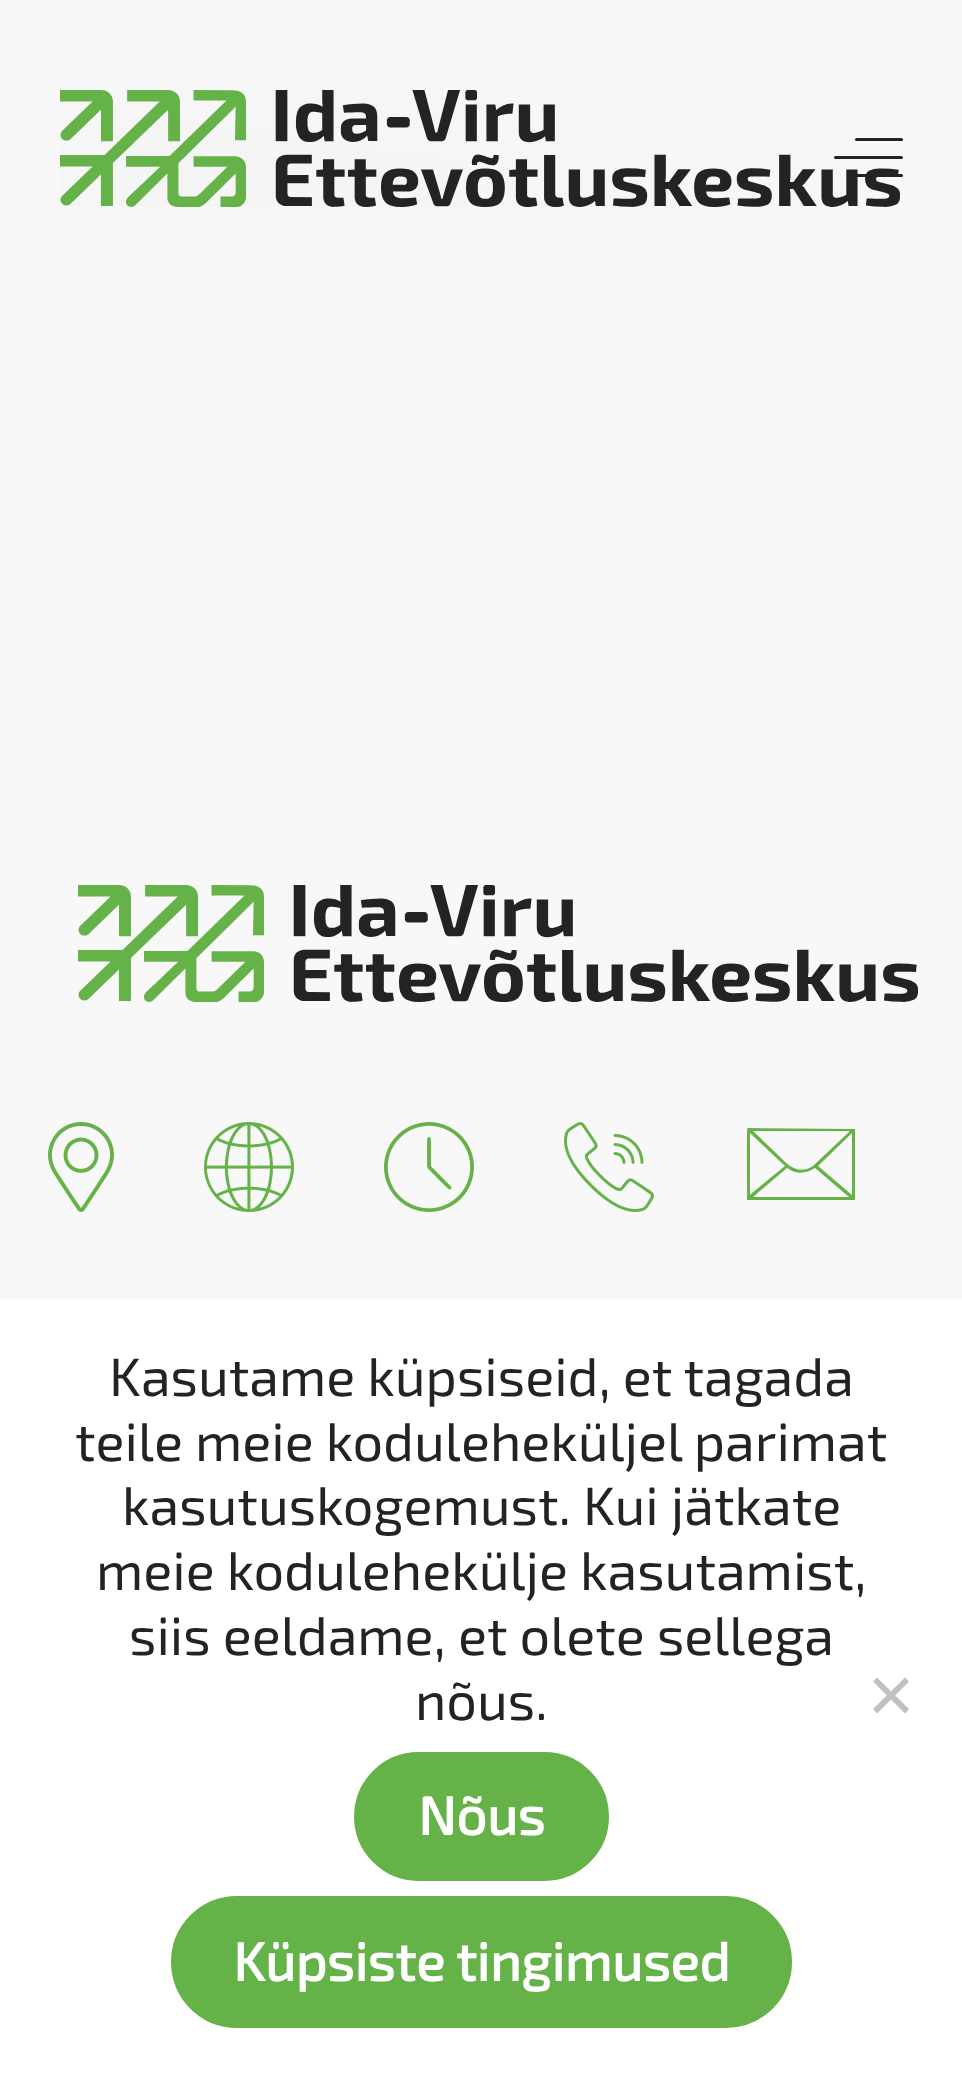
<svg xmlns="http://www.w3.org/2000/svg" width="962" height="2088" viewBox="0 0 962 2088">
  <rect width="100%" height="100%" fill="#f8f8f8"/>
  <image x="60" y="90" width="840" height="117" href="img1.png"/>
  <rect x="855" y="138" width="48" height="3" rx="1.5" fill="#232323"/>
  <rect x="834" y="156" width="69" height="3" rx="1.5" fill="#232323"/>
  <rect x="855" y="174" width="48" height="3" rx="1.5" fill="#232323"/>
  <image x="78" y="885" width="840" height="117" href="img2.png"/>
  <image x="48" y="1122" width="66" height="90" href="img3.png"/>
  <image x="204" y="1122" width="90" height="90" href="img4.png"/>
  <image x="384" y="1122" width="90" height="90" href="img5.png"/>
  <image x="564" y="1122" width="90" height="90" href="img6.png"/>
  <path d="M748 1128C747 1128 747 1126 747 1164C747 1198 747 1199 747 1200C748 1200 854 1200 855 1200C855 1199 855 1129 855 1129ZM849 1132L813 1166C797 1176 787 1164 777 1154L753 1131H849ZM769 1151L785 1166L752 1193C750 1195 750 1195 750 1193V1133ZM852 1180V1195L818 1166L852 1133ZM789 1169C797 1175 807 1173 815 1168L849 1197H753L787 1168Z" fill="#65b249" fill-rule="evenodd"/>
  <rect x="0" y="1299" width="962" height="789" fill="#ffffff"/>
  <text x="109" y="1396" font-family="'Exo 2'" font-size="54" fill="#232323">Kasutame küpsiseid, et tagada</text>
  <text x="75" y="1461" font-family="'Exo 2'" font-size="54" fill="#232323">teile meie koduleheküljel parimat</text>
  <text x="122" y="1525" font-family="'Exo 2'" font-size="54" fill="#232323">kasutuskogemust. Kui jätkate</text>
  <text x="96" y="1590" font-family="'Exo 2'" font-size="54" fill="#232323">meie kodulehekülje kasutamist,</text>
  <text x="129" y="1655" font-family="'Exo 2'" font-size="54" fill="#232323">siis eeldame, et olete sellega</text>
  <text x="415" y="1720" font-family="'Exo 2'" font-size="54" fill="#232323">nõus.</text>
  <path d="M905 1677.5L909 1681.5L877 1713.5L873 1709Z" fill="#c0c0c0"/>
  <path d="M873 1681.5L877 1677.5L909 1709L905 1713.5Z" fill="#c0c0c0"/>
  <rect x="355.5" y="1753.5" width="252" height="126" rx="63" fill="#65b249" stroke="#65b249" stroke-width="3"/>
  <text x="418" y="1835" font-family="'Exo 2'" font-size="54" font-weight="bold" fill="#ffffff">Nõus</text>
  <rect x="172.5" y="1897.5" width="618" height="129" rx="64.5" fill="#65b249" stroke="#65b249" stroke-width="3"/>
  <text x="233" y="1981" font-family="'Exo 2'" font-size="54" font-weight="bold" fill="#ffffff">Küpsiste tingimused</text>
</svg>
